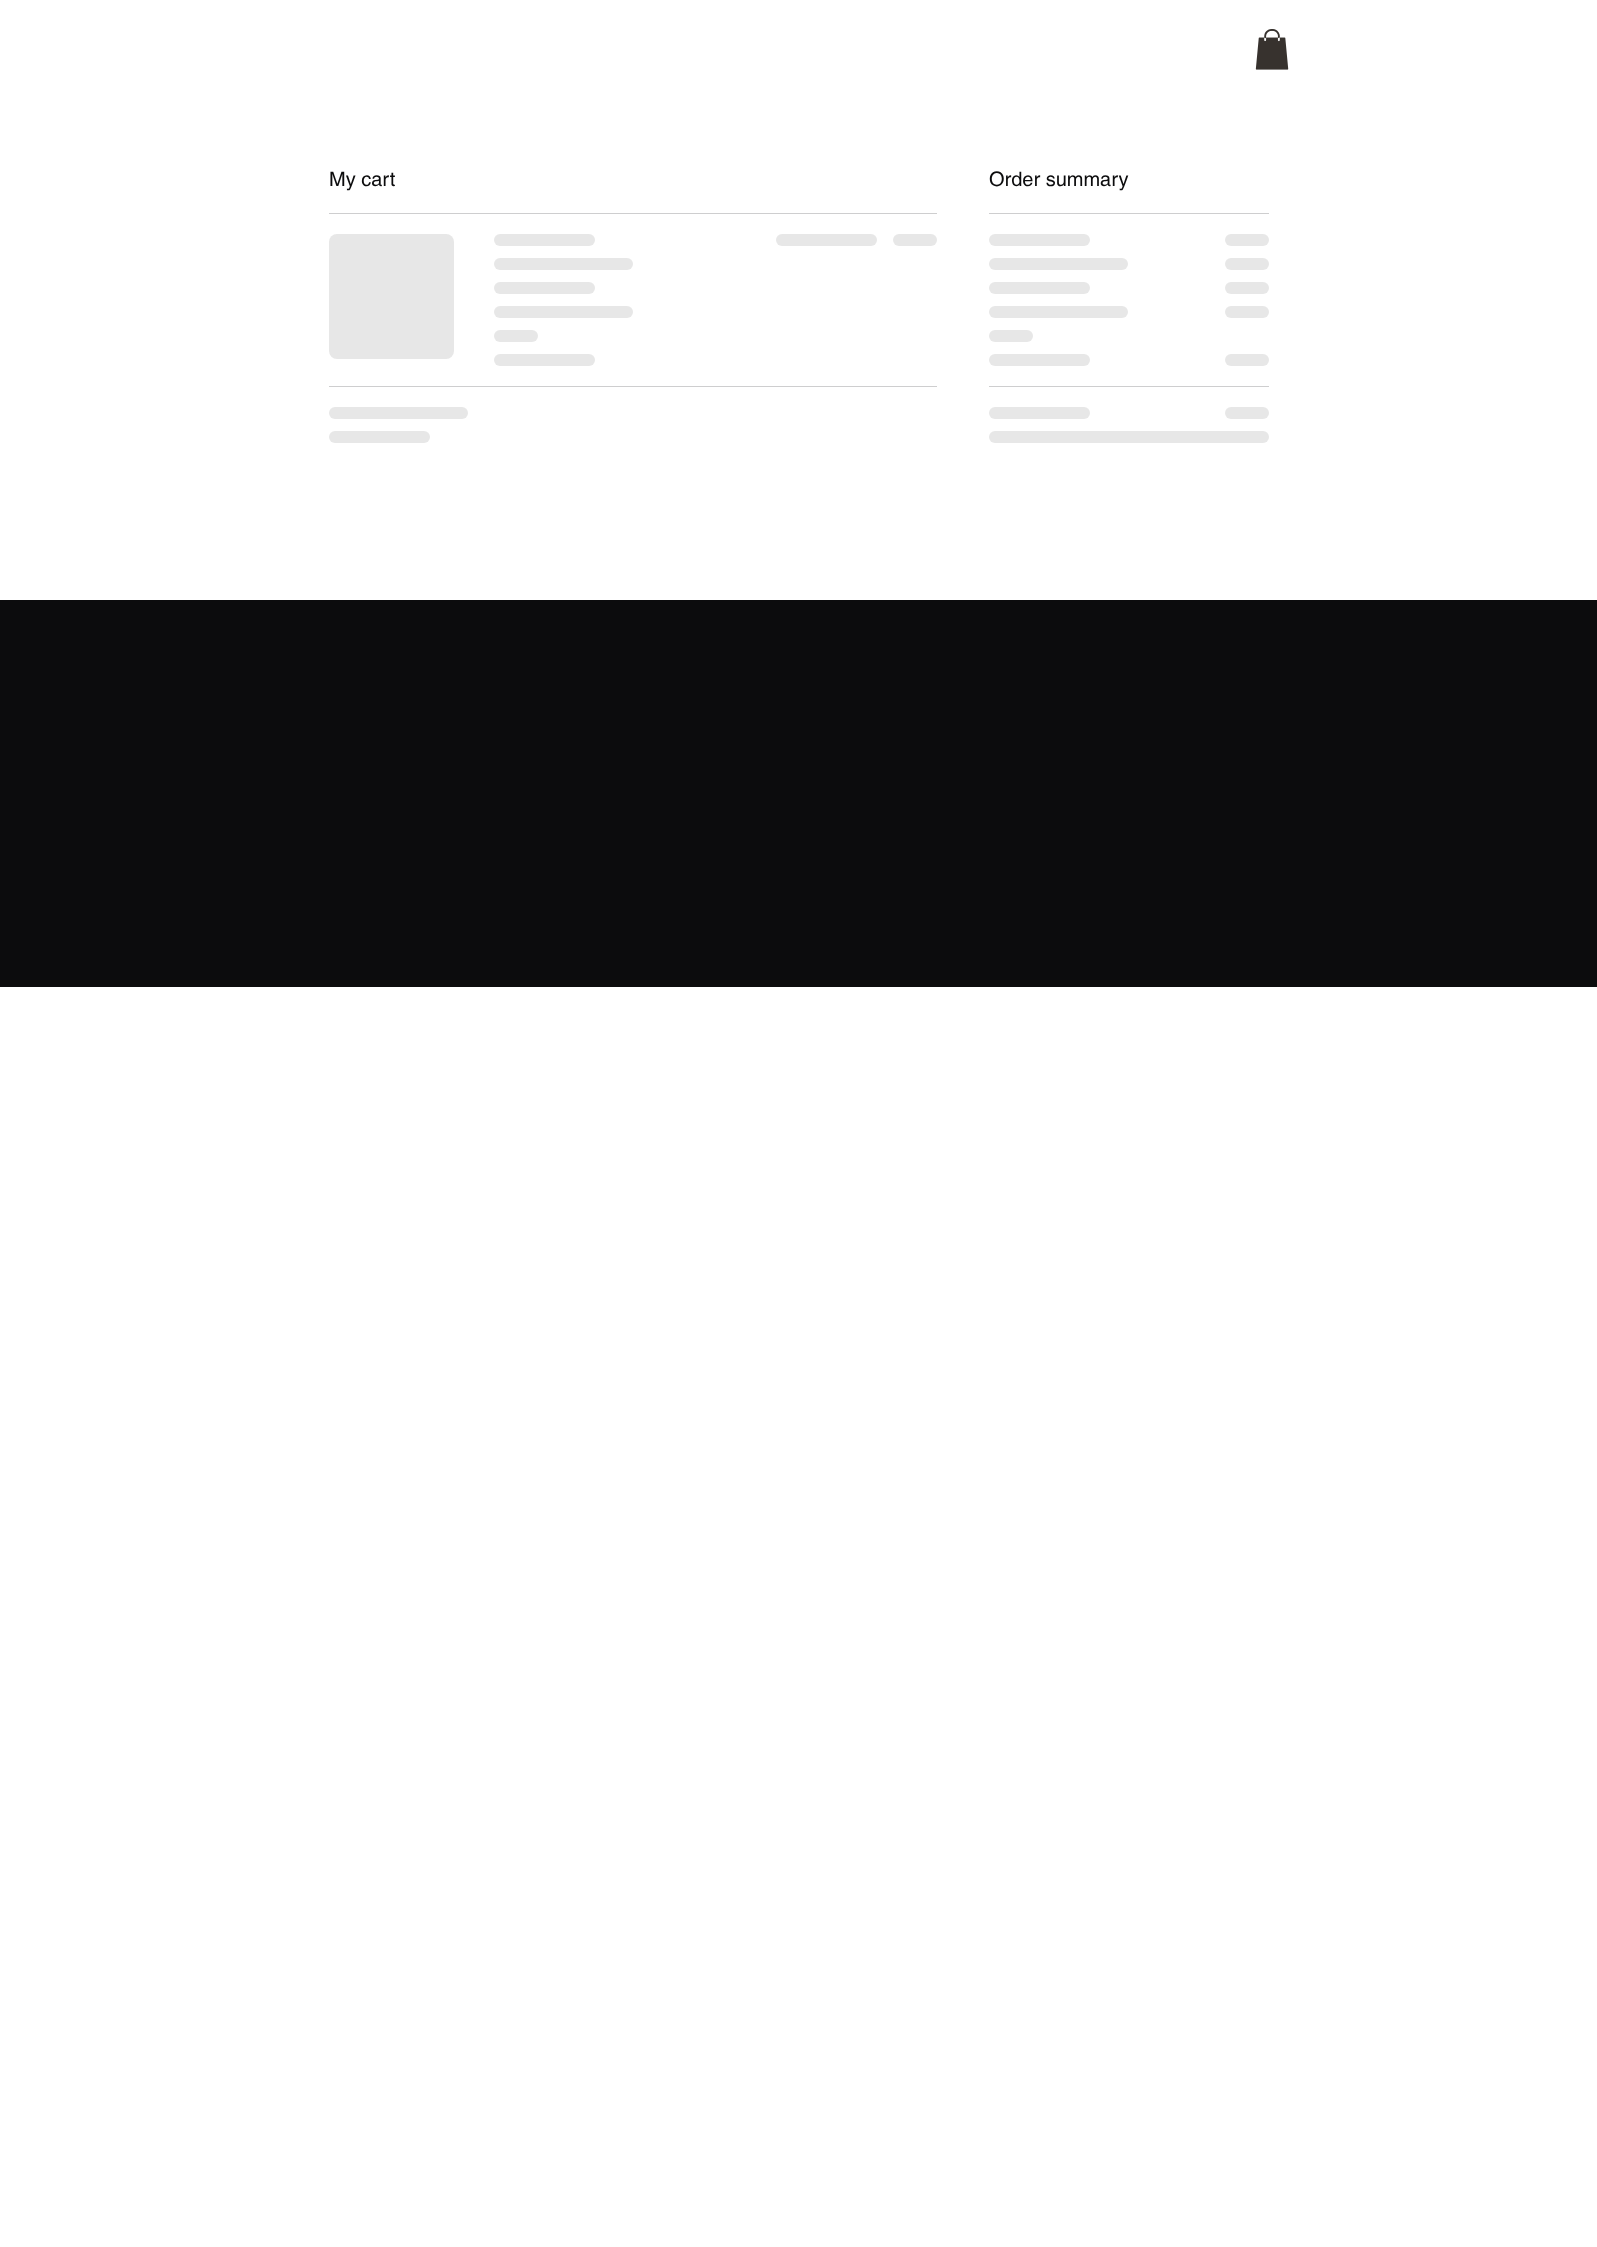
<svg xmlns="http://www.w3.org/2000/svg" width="1597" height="2247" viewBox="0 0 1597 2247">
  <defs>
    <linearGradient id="g1" gradientUnits="userSpaceOnUse" x1="329" y1="297" x2="829" y2="297"><stop offset="0.25" stop-color="#e7e7e7"/><stop offset="0.37" stop-color="#cececf"/><stop offset="0.63" stop-color="#e7e7e7"/></linearGradient>
    <linearGradient id="g2" gradientUnits="userSpaceOnUse" x1="494" y1="240" x2="898" y2="240"><stop offset="0.25" stop-color="#e7e7e7"/><stop offset="0.37" stop-color="#cececf"/><stop offset="0.63" stop-color="#e7e7e7"/></linearGradient>
    <linearGradient id="g3" gradientUnits="userSpaceOnUse" x1="494" y1="264" x2="1050" y2="264"><stop offset="0.25" stop-color="#e7e7e7"/><stop offset="0.37" stop-color="#cececf"/><stop offset="0.63" stop-color="#e7e7e7"/></linearGradient>
    <linearGradient id="g4" gradientUnits="userSpaceOnUse" x1="494" y1="288" x2="898" y2="288"><stop offset="0.25" stop-color="#e7e7e7"/><stop offset="0.37" stop-color="#cececf"/><stop offset="0.63" stop-color="#e7e7e7"/></linearGradient>
    <linearGradient id="g5" gradientUnits="userSpaceOnUse" x1="494" y1="312" x2="1050" y2="312"><stop offset="0.25" stop-color="#e7e7e7"/><stop offset="0.37" stop-color="#cececf"/><stop offset="0.63" stop-color="#e7e7e7"/></linearGradient>
    <linearGradient id="g6" gradientUnits="userSpaceOnUse" x1="494" y1="336" x2="670" y2="336"><stop offset="0.25" stop-color="#e7e7e7"/><stop offset="0.37" stop-color="#cececf"/><stop offset="0.63" stop-color="#e7e7e7"/></linearGradient>
    <linearGradient id="g7" gradientUnits="userSpaceOnUse" x1="494" y1="360" x2="898" y2="360"><stop offset="0.25" stop-color="#e7e7e7"/><stop offset="0.37" stop-color="#cececf"/><stop offset="0.63" stop-color="#e7e7e7"/></linearGradient>
    <linearGradient id="g8" gradientUnits="userSpaceOnUse" x1="776" y1="240" x2="1180" y2="240"><stop offset="0.25" stop-color="#e7e7e7"/><stop offset="0.37" stop-color="#cececf"/><stop offset="0.63" stop-color="#e7e7e7"/></linearGradient>
    <linearGradient id="g9" gradientUnits="userSpaceOnUse" x1="893" y1="240" x2="1069" y2="240"><stop offset="0.25" stop-color="#e7e7e7"/><stop offset="0.37" stop-color="#cececf"/><stop offset="0.63" stop-color="#e7e7e7"/></linearGradient>
    <linearGradient id="g10" gradientUnits="userSpaceOnUse" x1="329" y1="413" x2="885" y2="413"><stop offset="0.25" stop-color="#e7e7e7"/><stop offset="0.37" stop-color="#cececf"/><stop offset="0.63" stop-color="#e7e7e7"/></linearGradient>
    <linearGradient id="g11" gradientUnits="userSpaceOnUse" x1="329" y1="437" x2="733" y2="437"><stop offset="0.25" stop-color="#e7e7e7"/><stop offset="0.37" stop-color="#cececf"/><stop offset="0.63" stop-color="#e7e7e7"/></linearGradient>
    <linearGradient id="g12" gradientUnits="userSpaceOnUse" x1="989" y1="240" x2="1393" y2="240"><stop offset="0.25" stop-color="#e7e7e7"/><stop offset="0.37" stop-color="#cececf"/><stop offset="0.63" stop-color="#e7e7e7"/></linearGradient>
    <linearGradient id="g13" gradientUnits="userSpaceOnUse" x1="1225" y1="240" x2="1401" y2="240"><stop offset="0.25" stop-color="#e7e7e7"/><stop offset="0.37" stop-color="#cececf"/><stop offset="0.63" stop-color="#e7e7e7"/></linearGradient>
    <linearGradient id="g14" gradientUnits="userSpaceOnUse" x1="989" y1="264" x2="1545" y2="264"><stop offset="0.25" stop-color="#e7e7e7"/><stop offset="0.37" stop-color="#cececf"/><stop offset="0.63" stop-color="#e7e7e7"/></linearGradient>
    <linearGradient id="g15" gradientUnits="userSpaceOnUse" x1="1225" y1="264" x2="1401" y2="264"><stop offset="0.25" stop-color="#e7e7e7"/><stop offset="0.37" stop-color="#cececf"/><stop offset="0.63" stop-color="#e7e7e7"/></linearGradient>
    <linearGradient id="g16" gradientUnits="userSpaceOnUse" x1="989" y1="288" x2="1393" y2="288"><stop offset="0.25" stop-color="#e7e7e7"/><stop offset="0.37" stop-color="#cececf"/><stop offset="0.63" stop-color="#e7e7e7"/></linearGradient>
    <linearGradient id="g17" gradientUnits="userSpaceOnUse" x1="1225" y1="288" x2="1401" y2="288"><stop offset="0.25" stop-color="#e7e7e7"/><stop offset="0.37" stop-color="#cececf"/><stop offset="0.63" stop-color="#e7e7e7"/></linearGradient>
    <linearGradient id="g18" gradientUnits="userSpaceOnUse" x1="989" y1="312" x2="1545" y2="312"><stop offset="0.25" stop-color="#e7e7e7"/><stop offset="0.37" stop-color="#cececf"/><stop offset="0.63" stop-color="#e7e7e7"/></linearGradient>
    <linearGradient id="g19" gradientUnits="userSpaceOnUse" x1="1225" y1="312" x2="1401" y2="312"><stop offset="0.25" stop-color="#e7e7e7"/><stop offset="0.37" stop-color="#cececf"/><stop offset="0.63" stop-color="#e7e7e7"/></linearGradient>
    <linearGradient id="g20" gradientUnits="userSpaceOnUse" x1="989" y1="336" x2="1165" y2="336"><stop offset="0.25" stop-color="#e7e7e7"/><stop offset="0.37" stop-color="#cececf"/><stop offset="0.63" stop-color="#e7e7e7"/></linearGradient>
    <linearGradient id="g21" gradientUnits="userSpaceOnUse" x1="989" y1="360" x2="1393" y2="360"><stop offset="0.25" stop-color="#e7e7e7"/><stop offset="0.37" stop-color="#cececf"/><stop offset="0.63" stop-color="#e7e7e7"/></linearGradient>
    <linearGradient id="g22" gradientUnits="userSpaceOnUse" x1="1225" y1="360" x2="1401" y2="360"><stop offset="0.25" stop-color="#e7e7e7"/><stop offset="0.37" stop-color="#cececf"/><stop offset="0.63" stop-color="#e7e7e7"/></linearGradient>
    <linearGradient id="g23" gradientUnits="userSpaceOnUse" x1="989" y1="413" x2="1393" y2="413"><stop offset="0.25" stop-color="#e7e7e7"/><stop offset="0.37" stop-color="#cececf"/><stop offset="0.63" stop-color="#e7e7e7"/></linearGradient>
    <linearGradient id="g24" gradientUnits="userSpaceOnUse" x1="1225" y1="413" x2="1401" y2="413"><stop offset="0.25" stop-color="#e7e7e7"/><stop offset="0.37" stop-color="#cececf"/><stop offset="0.63" stop-color="#e7e7e7"/></linearGradient>
    <linearGradient id="g25" gradientUnits="userSpaceOnUse" x1="989" y1="437" x2="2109" y2="437"><stop offset="0.25" stop-color="#e7e7e7"/><stop offset="0.37" stop-color="#cececf"/><stop offset="0.63" stop-color="#e7e7e7"/></linearGradient>
  </defs>
  <rect width="100%" height="100%" fill="#ffffff"/>
  <image x="1255" y="29" width="34" height="41" href="img1.png"/>
  <rect x="329" y="213" width="608" height="1" fill="#cececf"/>
  <text x="329" y="186" font-family="helvetica" font-size="20" fill="#0c0c0d">My cart</text>
  <rect x="329" y="234" width="125" height="125" rx="8" fill="url(#g1)"/>
  <rect x="494" y="234" width="101" height="12" rx="6" fill="url(#g2)"/>
  <rect x="494" y="258" width="139" height="12" rx="6" fill="url(#g3)"/>
  <rect x="494" y="282" width="101" height="12" rx="6" fill="url(#g4)"/>
  <rect x="494" y="306" width="139" height="12" rx="6" fill="url(#g5)"/>
  <rect x="494" y="330" width="44" height="12" rx="6" fill="url(#g6)"/>
  <rect x="494" y="354" width="101" height="12" rx="6" fill="url(#g7)"/>
  <rect x="776" y="234" width="101" height="12" rx="6" fill="url(#g8)"/>
  <rect x="893" y="234" width="44" height="12" rx="6" fill="url(#g9)"/>
  <rect x="329" y="386" width="608" height="1" fill="#cececf"/>
  <rect x="329" y="407" width="139" height="12" rx="6" fill="url(#g10)"/>
  <rect x="329" y="431" width="101" height="12" rx="6" fill="url(#g11)"/>
  <rect x="989" y="213" width="280" height="1" fill="#cececf"/>
  <text x="989" y="186" font-family="helvetica" font-size="20" fill="#0c0c0d">Order summary</text>
  <rect x="989" y="234" width="101" height="12" rx="6" fill="url(#g12)"/>
  <rect x="1225" y="234" width="44" height="12" rx="6" fill="url(#g13)"/>
  <rect x="989" y="258" width="139" height="12" rx="6" fill="url(#g14)"/>
  <rect x="1225" y="258" width="44" height="12" rx="6" fill="url(#g15)"/>
  <rect x="989" y="282" width="101" height="12" rx="6" fill="url(#g16)"/>
  <rect x="1225" y="282" width="44" height="12" rx="6" fill="url(#g17)"/>
  <rect x="989" y="306" width="139" height="12" rx="6" fill="url(#g18)"/>
  <rect x="1225" y="306" width="44" height="12" rx="6" fill="url(#g19)"/>
  <rect x="989" y="330" width="44" height="12" rx="6" fill="url(#g20)"/>
  <rect x="989" y="354" width="101" height="12" rx="6" fill="url(#g21)"/>
  <rect x="1225" y="354" width="44" height="12" rx="6" fill="url(#g22)"/>
  <rect x="989" y="386" width="280" height="1" fill="#cececf"/>
  <rect x="989" y="407" width="101" height="12" rx="6" fill="url(#g23)"/>
  <rect x="1225" y="407" width="44" height="12" rx="6" fill="url(#g24)"/>
  <rect x="989" y="431" width="280" height="12" rx="6" fill="url(#g25)"/>
  <rect x="0" y="600" width="1597" height="387" fill="#0c0c0d"/>
</svg>
